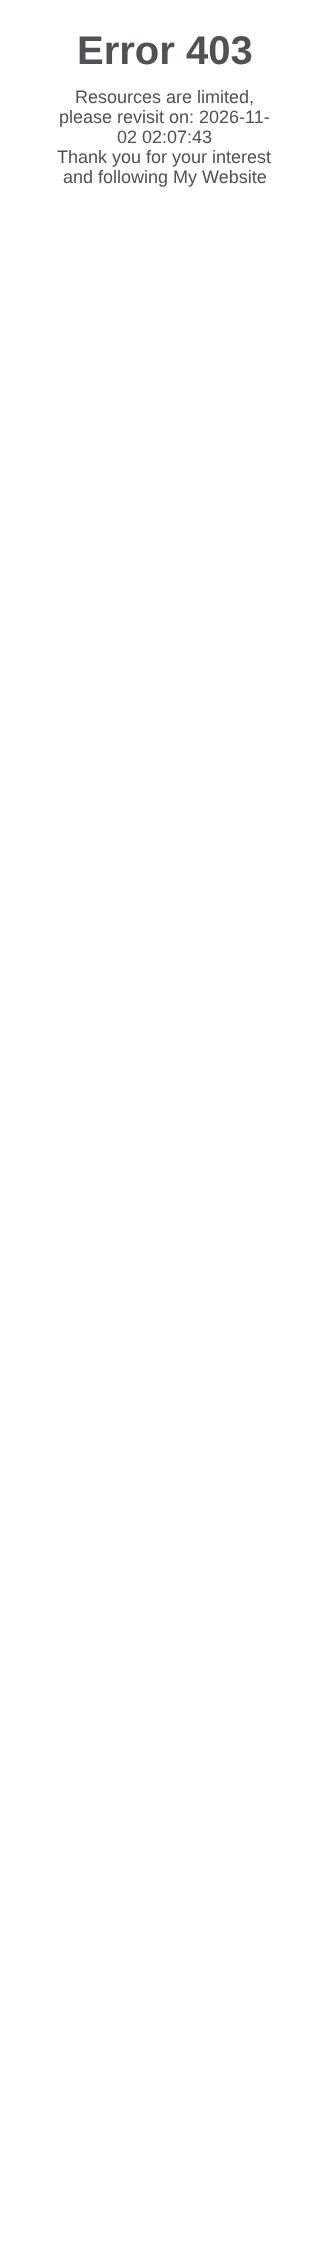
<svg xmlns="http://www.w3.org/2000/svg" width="329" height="2243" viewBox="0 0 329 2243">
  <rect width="100%" height="100%" fill="#ffffff"/>
  <text x="77" y="64" font-family="Liberation Sans" font-size="40" font-weight="bold" fill="#4f5155">Error 403</text>
  <text x="75" y="103" font-family="Liberation Sans" font-size="18" fill="#4f5155">Resources are limited,</text>
  <text x="59" y="123" font-family="Liberation Sans" font-size="18" fill="#4f5155">please revisit on: 2026-11-</text>
  <text x="117" y="143" font-family="Liberation Sans" font-size="18" fill="#4f5155">02 02:07:43</text>
  <text x="57" y="163" font-family="Liberation Sans" font-size="18" fill="#4f5155">Thank you for your interest</text>
  <text x="63" y="183" font-family="Liberation Sans" font-size="18" fill="#4f5155">and following My Website</text>
</svg>
